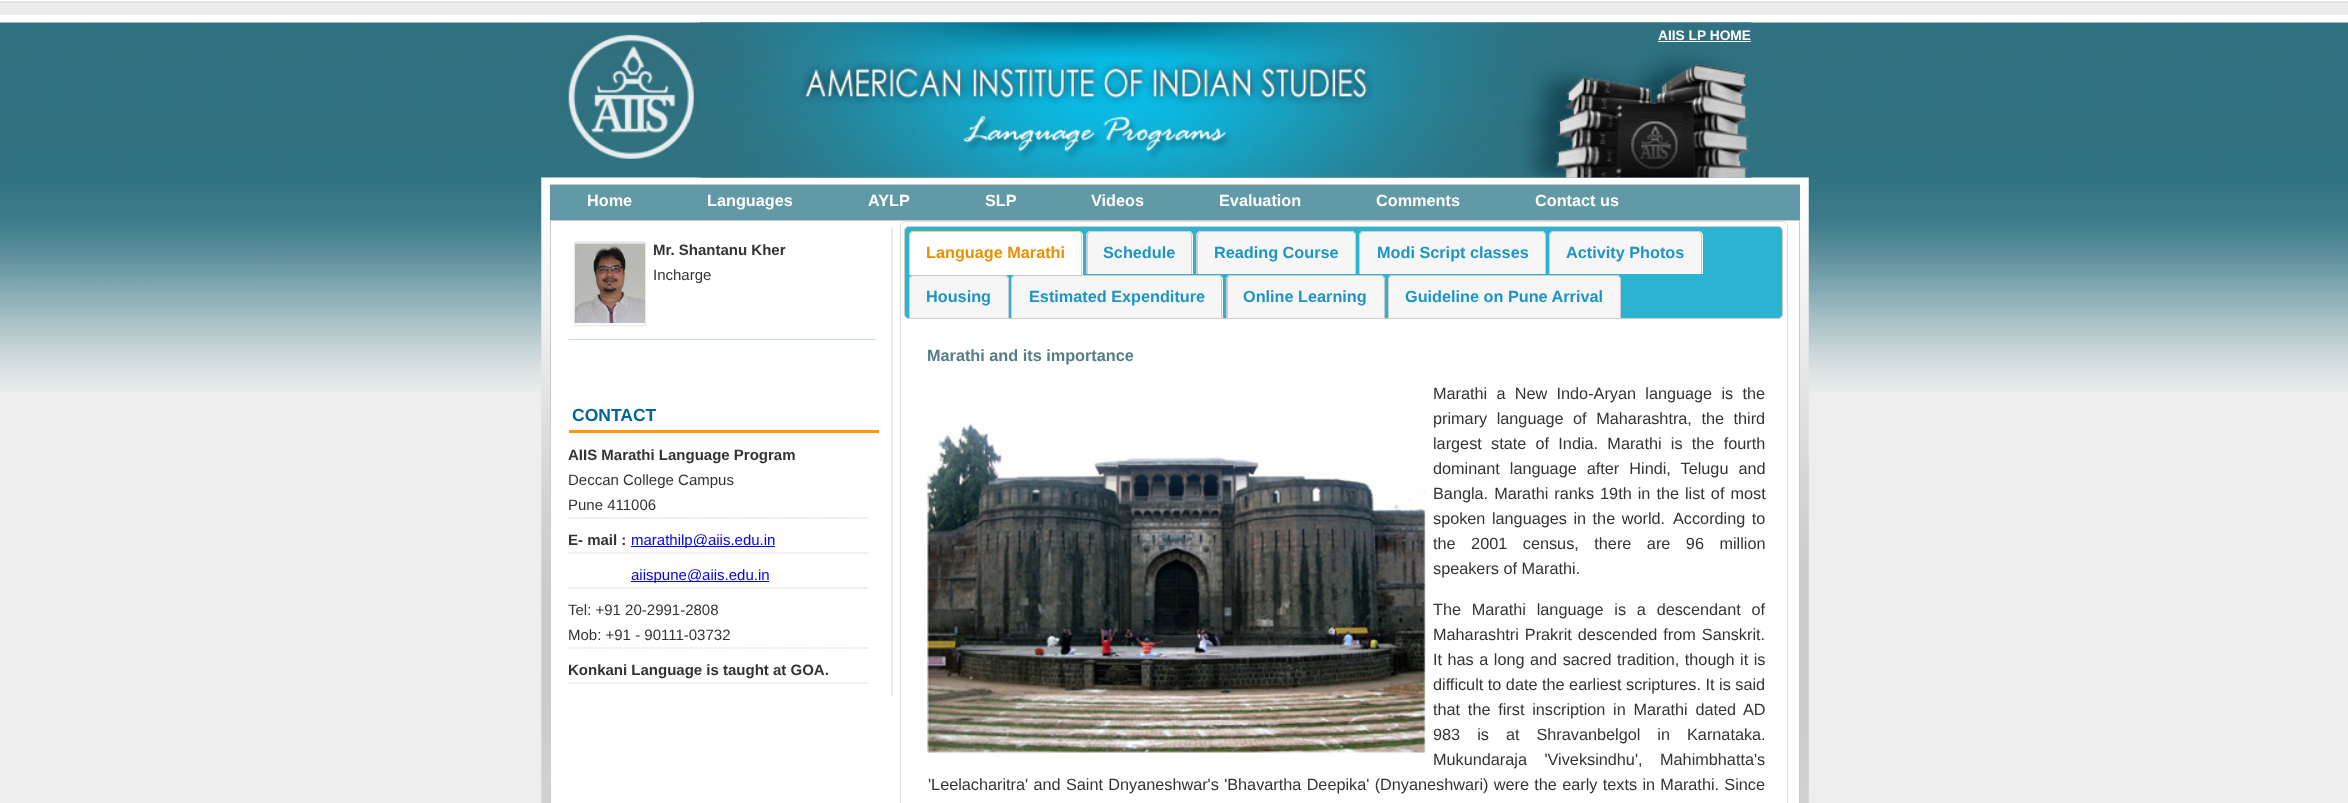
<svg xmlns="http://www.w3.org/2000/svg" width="2348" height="803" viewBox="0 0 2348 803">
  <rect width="100%" height="100%" fill="#eeeeee"/>
  <image x="0" y="0" width="2348" height="392" href="img1.png"/>
  <image x="541" y="177" width="1268" height="626" href="img2.png"/>
  <rect x="550" y="15" width="150" height="163" fill="#ffffff"/>
  <image x="550" y="22" width="150" height="156" href="img3.png"/>
  <image x="700" y="22" width="1052" height="156" href="img4.png"/>
  <text x="1658" y="40" font-family="Liberation Sans" font-size="13.75" font-weight="bold" fill="#ffffff">AIIS LP HOME</text>
  <rect x="1658" y="41" width="93" height="1" fill="#ffffff"/>
  <rect x="550" y="185" width="1250" height="35" fill="#6199a7"/>
  <rect x="550" y="184" width="1250" height="1" fill="#cccccc"/>
  <rect x="550" y="220" width="1250" height="1" fill="#cccccc"/>
  <text x="587" y="206" font-family="Liberation Sans" font-size="16.25" font-weight="bold" fill="#ffffff">Home</text>
  <text x="707" y="206" font-family="Liberation Sans" font-size="16.25" font-weight="bold" fill="#ffffff">Languages</text>
  <text x="868" y="206" font-family="Liberation Sans" font-size="16.25" font-weight="bold" fill="#ffffff">AYLP</text>
  <text x="985" y="206" font-family="Liberation Sans" font-size="16.25" font-weight="bold" fill="#ffffff">SLP</text>
  <text x="1091" y="206" font-family="Liberation Sans" font-size="16.25" font-weight="bold" fill="#ffffff">Videos</text>
  <text x="1219" y="206" font-family="Liberation Sans" font-size="16.25" font-weight="bold" fill="#ffffff">Evaluation</text>
  <text x="1376" y="206" font-family="Liberation Sans" font-size="16.25" font-weight="bold" fill="#ffffff">Comments</text>
  <text x="1535" y="206" font-family="Liberation Sans" font-size="16.25" font-weight="bold" fill="#ffffff">Contact us</text>
  <rect x="551" y="221" width="1248" height="582" fill="#ffffff"/>
  <rect x="1799" y="221" width="1" height="582" fill="#cccccc"/>
  <rect x="550" y="221" width="1" height="582" fill="#cccccc"/>
  <image x="891" y="227" width="2" height="470" href="img5.png"/>
  <rect x="569" y="339" width="307" height="1" fill="#c3e0e7"/>
  <image x="573" y="241" width="74" height="86" href="img6.png"/>
  <text x="653" y="255" font-family="Liberation Sans" font-size="15" font-weight="bold" fill="#333333">Mr. Shantanu Kher</text>
  <text x="653" y="280" font-family="Liberation Sans" font-size="15" fill="#333333">Incharge</text>
  <rect x="569" y="430" width="310" height="3" fill="#ff9900"/>
  <text x="572" y="421" font-family="Liberation Sans" font-size="17.5" font-weight="bold" fill="#006699">CONTACT</text>
  <path d="M569 518H869" fill="none" stroke="#cccccc" stroke-width="1.2" stroke-dasharray="1.25 1.25"/>
  <text x="568" y="460" font-family="Liberation Sans" font-size="15" font-weight="bold" fill="#333333">AIIS Marathi Language Program</text>
  <text x="568" y="485" font-family="Liberation Sans" font-size="15" fill="#333333">Deccan College Campus</text>
  <text x="568" y="510" font-family="Liberation Sans" font-size="15" fill="#333333">Pune 411006</text>
  <path d="M569 553H869" fill="none" stroke="#cccccc" stroke-width="1.2" stroke-dasharray="1.25 1.25"/>
  <text x="568" y="545" font-family="Liberation Sans" font-size="15" font-weight="bold" fill="#333333">E- mail :</text>
  <rect x="631" y="546" width="144" height="1" fill="#0000ee"/>
  <text x="631" y="545" font-family="Liberation Sans" font-size="15" fill="#0000ee">marathilp@aiis.edu.in</text>
  <path d="M569 588H869" fill="none" stroke="#cccccc" stroke-width="1.2" stroke-dasharray="1.25 1.25"/>
  <rect x="631" y="581" width="138" height="1" fill="#0000ee"/>
  <text x="631" y="580" font-family="Liberation Sans" font-size="15" fill="#0000ee">aiispune@aiis.edu.in</text>
  <path d="M569 648H869" fill="none" stroke="#cccccc" stroke-width="1.2" stroke-dasharray="1.25 1.25"/>
  <text x="568" y="615" font-family="Liberation Sans" font-size="15" fill="#333333">Tel: +91 20-2991-2808</text>
  <text x="568" y="640" font-family="Liberation Sans" font-size="15" fill="#333333">Mob: +91 - 90111-03732</text>
  <path d="M569 683H869" fill="none" stroke="#cccccc" stroke-width="1.2" stroke-dasharray="1.25 1.25"/>
  <text x="568" y="675" font-family="Liberation Sans" font-size="15" font-weight="bold" fill="#333333">Konkani Language is taught at GOA.</text>
  <rect x="900.5" y="221.5" width="887" height="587" rx="4.5" fill="none" stroke="#dddddd"/>
  <rect x="904.5" y="226.5" width="878" height="92" rx="4.5" fill="#2cb3d1" stroke="#cccccc"/>
  <path d="M914 231H1078C1081 231 1083 233 1083 236V275H909V236C909 233 911 231 914 231Z" fill="#ffffff"/>
  <path d="M914 231H1078C1080 231 1082 233 1082 236V275H909V236C909 233 911 231 914 231ZM914 232H1078C1080 232 1081 234 1081 236V275H910V236C910 234 912 232 914 232Z" fill="#fbd850" fill-rule="evenodd"/>
  <text x="926" y="258" font-family="Liberation Sans" font-size="16.25" font-weight="bold" fill="#eb8f00">Language Marathi</text>
  <path d="M1091 231H1188C1191 231 1193 233 1193 236V274H1086V236C1086 233 1088 231 1091 231Z" fill="#f6f6f6"/>
  <path d="M1091 231H1188C1190 231 1192 233 1192 236V274H1086V236C1086 233 1088 231 1091 231ZM1091 232H1188C1190 232 1191 234 1191 236V274H1088V236C1088 234 1089 232 1091 232Z" fill="#cccccc" fill-rule="evenodd"/>
  <text x="1103" y="258" font-family="Liberation Sans" font-size="16.25" font-weight="bold" fill="#1c94c4">Schedule</text>
  <path d="M1201 231H1351C1354 231 1356 233 1356 236V274H1196V236C1196 233 1198 231 1201 231Z" fill="#f6f6f6"/>
  <path d="M1201 231H1351C1354 231 1356 233 1356 236V274H1196V236C1196 233 1198 231 1201 231ZM1201 232H1351C1353 232 1355 234 1355 236V274H1198V236C1198 234 1199 232 1201 232Z" fill="#cccccc" fill-rule="evenodd"/>
  <text x="1214" y="258" font-family="Liberation Sans" font-size="16.25" font-weight="bold" fill="#1c94c4">Reading Course</text>
  <path d="M1364 231H1541C1544 231 1546 233 1546 236V274H1359V236C1359 233 1361 231 1364 231Z" fill="#f6f6f6"/>
  <path d="M1364 231H1541C1544 231 1546 233 1546 236V274H1359V236C1359 233 1361 231 1364 231ZM1364 232H1541C1543 232 1545 234 1545 236V274H1360V236C1360 234 1362 232 1364 232Z" fill="#cccccc" fill-rule="evenodd"/>
  <text x="1377" y="258" font-family="Liberation Sans" font-size="16.25" font-weight="bold" fill="#1c94c4">Modi Script classes</text>
  <path d="M1554 231H1698C1701 231 1703 233 1703 236V274H1549V236C1549 233 1551 231 1554 231Z" fill="#f6f6f6"/>
  <path d="M1554 231H1698C1700 231 1702 233 1702 236V274H1549V236C1549 233 1551 231 1554 231ZM1554 232H1698C1700 232 1701 234 1701 236V274H1550V236C1550 234 1552 232 1554 232Z" fill="#cccccc" fill-rule="evenodd"/>
  <text x="1566" y="258" font-family="Liberation Sans" font-size="16.25" font-weight="bold" fill="#1c94c4">Activity Photos</text>
  <path d="M914 275H1004C1007 275 1009 277 1009 280V318H909V280C909 277 911 275 914 275Z" fill="#f6f6f6"/>
  <path d="M914 275H1004C1007 275 1009 277 1009 280V318H909V280C909 277 911 275 914 275ZM914 276H1004C1006 276 1008 278 1008 280V318H910V280C910 278 912 276 914 276Z" fill="#cccccc" fill-rule="evenodd"/>
  <text x="926" y="302" font-family="Liberation Sans" font-size="16.25" font-weight="bold" fill="#1c94c4">Housing</text>
  <path d="M1016 275H1218C1221 275 1223 277 1223 280V318H1011V280C1011 277 1013 275 1016 275Z" fill="#f6f6f6"/>
  <path d="M1016 275H1218C1220 275 1222 277 1222 280V318H1011V280C1011 277 1013 275 1016 275ZM1016 276H1218C1220 276 1221 278 1221 280V318H1012V280C1012 278 1014 276 1016 276Z" fill="#cccccc" fill-rule="evenodd"/>
  <text x="1029" y="302" font-family="Liberation Sans" font-size="16.25" font-weight="bold" fill="#1c94c4">Estimated Expenditure</text>
  <path d="M1231 275H1380C1383 275 1385 277 1385 280V318H1226V280C1226 277 1228 275 1231 275Z" fill="#f6f6f6"/>
  <path d="M1231 275H1380C1383 275 1385 277 1385 280V318H1226V280C1226 277 1228 275 1231 275ZM1231 276H1380C1382 276 1384 278 1384 280V318H1228V280C1228 278 1229 276 1231 276Z" fill="#cccccc" fill-rule="evenodd"/>
  <text x="1243" y="302" font-family="Liberation Sans" font-size="16.25" font-weight="bold" fill="#1c94c4">Online Learning</text>
  <path d="M1393 275H1616C1619 275 1621 277 1621 280V318H1388V280C1388 277 1390 275 1393 275Z" fill="#f6f6f6"/>
  <path d="M1392 275H1616C1619 275 1621 277 1621 280V318H1388V280C1388 277 1390 275 1392 275ZM1392 276H1616C1618 276 1620 278 1620 280V318H1389V280C1389 278 1390 276 1392 276Z" fill="#cccccc" fill-rule="evenodd"/>
  <text x="1405" y="302" font-family="Liberation Sans" font-size="16.25" font-weight="bold" fill="#1c94c4">Guideline on Pune Arrival</text>
  <text x="927" y="361" font-family="Liberation Sans" font-size="16.25" font-weight="bold" fill="#547d86">Marathi and its importance</text>
  <image x="926" y="423" width="500" height="331" href="img7.png"/>
  <text x="1433" y="399" word-spacing="4.75" font-family="Liberation Sans" font-size="16.25" fill="#333333">Marathi a New Indo-Aryan language is the</text>
  <text x="1433" y="424" word-spacing="5" font-family="Liberation Sans" font-size="16.25" fill="#333333">primary language of Maharashtra, the third</text>
  <text x="1433" y="449" word-spacing="4.75" font-family="Liberation Sans" font-size="16.25" fill="#333333">largest state of India. Marathi is the fourth</text>
  <text x="1433" y="474" word-spacing="5.5" font-family="Liberation Sans" font-size="16.25" fill="#333333">dominant language after Hindi, Telugu and</text>
  <text x="1433" y="499" word-spacing="1.5" font-family="Liberation Sans" font-size="16.25" fill="#333333">Bangla. Marathi ranks 19th in the list of most</text>
  <text x="1433" y="524" word-spacing="2" font-family="Liberation Sans" font-size="16.25" fill="#333333">spoken languages in the world.</text>
  <text x="1673" y="524" word-spacing="2" font-family="Liberation Sans" font-size="16.25" fill="#333333">According to</text>
  <text x="1433" y="549" word-spacing="11" font-family="Liberation Sans" font-size="16.25" fill="#333333">the 2001 census, there are 96 million</text>
  <text x="1433" y="574" font-family="Liberation Sans" font-size="16.25" fill="#333333">speakers of Marathi.</text>
  <text x="1433" y="615" word-spacing="6.25" font-family="Liberation Sans" font-size="16.25" fill="#333333">The Marathi language is a descendant of</text>
  <text x="1433" y="640" word-spacing="1.5" font-family="Liberation Sans" font-size="16.25" fill="#333333">Maharashtri Prakrit descended from Sanskrit.</text>
  <text x="1433" y="665" word-spacing="1" font-family="Liberation Sans" font-size="16.25" fill="#333333">It has a long and sacred tradition, though it is</text>
  <text x="1433" y="690" font-family="Liberation Sans" font-size="16.25" fill="#333333">difficult to date the earliest scriptures. It is said</text>
  <text x="1433" y="715" word-spacing="3.25" font-family="Liberation Sans" font-size="16.25" fill="#333333">that the first inscription in Marathi dated AD</text>
  <text x="1433" y="740" word-spacing="12.5" font-family="Liberation Sans" font-size="16.25" fill="#333333">983 is at Shravanbelgol in Karnataka.</text>
  <text x="1433" y="765" word-spacing="13" font-family="Liberation Sans" font-size="16.25" fill="#333333">Mukundaraja 'Viveksindhu', Mahimbhatta's</text>
  <text x="928" y="790" word-spacing="0.8" font-family="Liberation Sans" font-size="16.25" fill="#333333">'Leelacharitra' and Saint Dnyaneshwar's 'Bhavartha Deepika' (Dnyaneshwari) were the early texts in Marathi. Since</text>
</svg>
